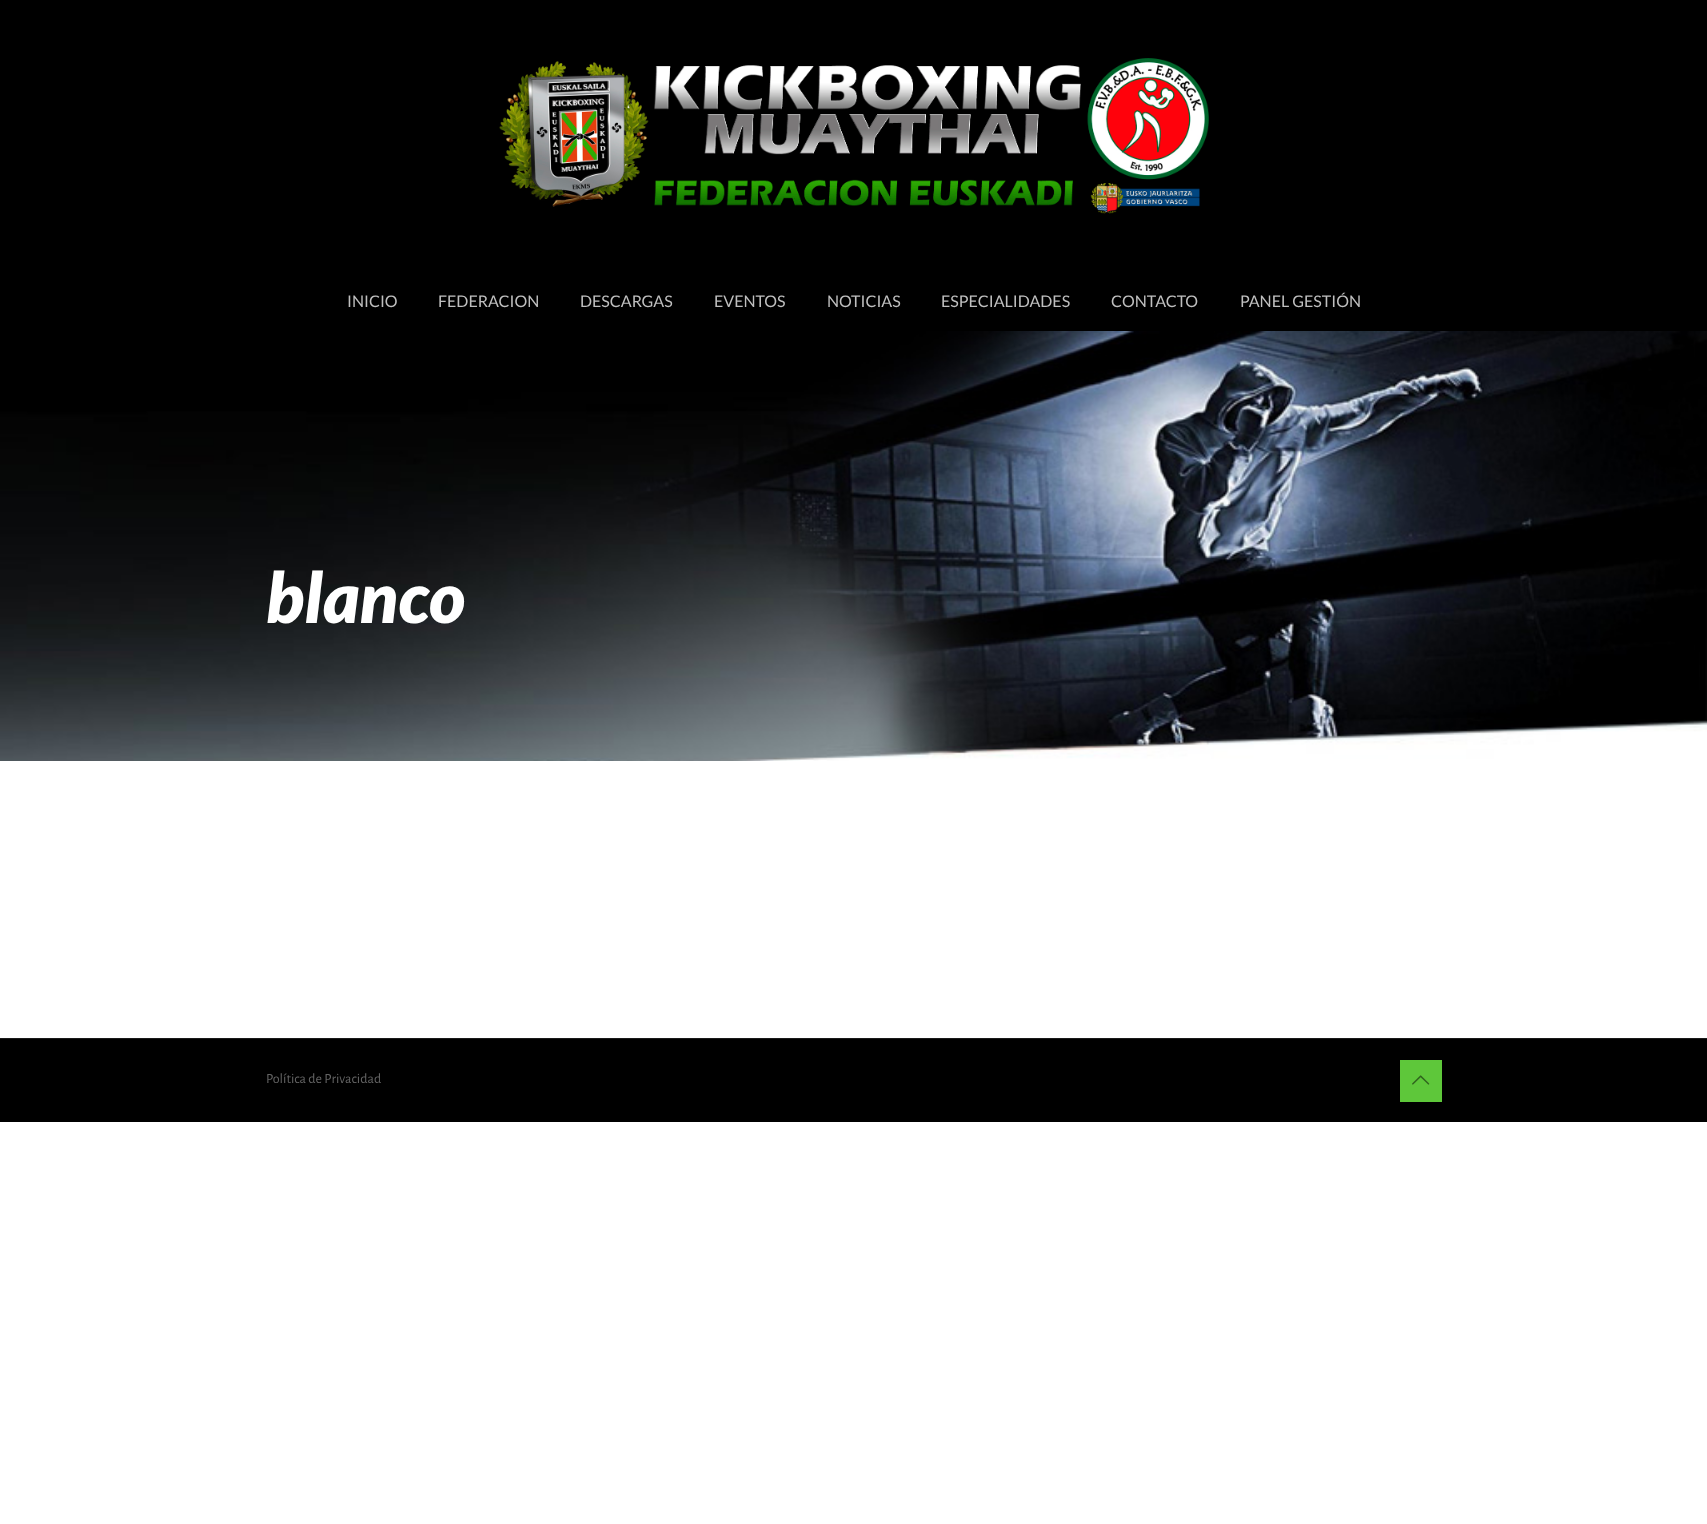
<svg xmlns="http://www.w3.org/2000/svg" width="1707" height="1524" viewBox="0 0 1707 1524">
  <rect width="100%" height="100%" fill="#ffffff"/>
  <rect x="0" y="0" width="1707" height="331" fill="#000000"/>
  <image x="499" y="58" width="710" height="156" href="img1.png"/>
  <text x="347" y="307" font-family="Lato" font-size="16" fill="#bfbfbf">INICIO</text>
  <text x="438" y="307" font-family="Lato" font-size="16" fill="#bfbfbf">FEDERACION</text>
  <text x="580" y="307" font-family="Lato" font-size="16" fill="#bfbfbf">DESCARGAS</text>
  <text x="714" y="307" font-family="Lato" font-size="16" fill="#bfbfbf">EVENTOS</text>
  <text x="827" y="307" font-family="Lato" font-size="16" fill="#bfbfbf">NOTICIAS</text>
  <text x="941" y="307" font-family="Lato" font-size="16" fill="#bfbfbf">ESPECIALIDADES</text>
  <text x="1111" y="307" font-family="Lato" font-size="16" fill="#bfbfbf">CONTACTO</text>
  <text x="1240" y="307" font-family="Lato" font-size="16" fill="#bfbfbf">PANEL GESTIÓN</text>
  <image x="0" y="331" width="1707" height="430" href="img2.png"/>
  <text x="266" y="623" font-family="Lato" font-size="70" font-weight="900" font-style="italic" fill="#ffffff">blanco</text>
  <rect x="0" y="1039" width="1707" height="83" fill="#000000"/>
  <rect x="0" y="1038" width="1707" height="1" fill="#1a1a1a"/>
  <text x="266" y="1083" font-family="Alegreya Sans" font-size="14" fill="#646464">Política de Privacidad</text>
  <rect x="1400" y="1060" width="42" height="42" fill="#5ec73a"/>
  <image x="1412" y="1075" width="18" height="10" href="img3.png"/>
</svg>
